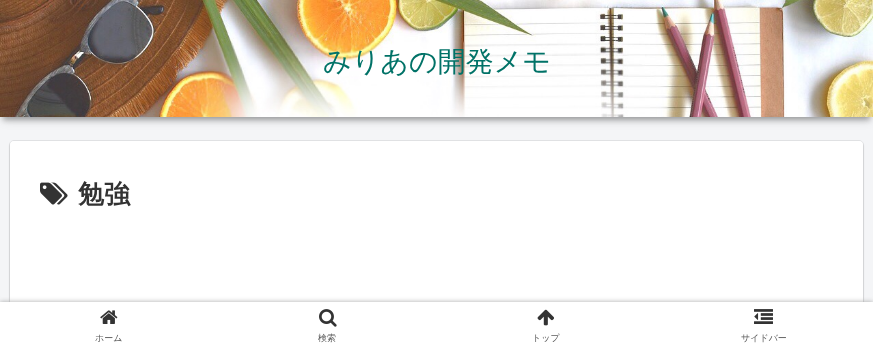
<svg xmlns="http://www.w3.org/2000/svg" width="873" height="352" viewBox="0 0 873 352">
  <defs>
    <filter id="blur1" x="-50%" y="-200%" width="200%" height="500%"><feGaussianBlur stdDeviation="5"/></filter>
    <filter id="blur2" x="-50%" y="-200%" width="200%" height="500%"><feGaussianBlur stdDeviation="2.5"/></filter>
    <filter id="blur3" x="-50%" y="-200%" width="200%" height="500%"><feGaussianBlur stdDeviation="1"/></filter>
  </defs>
  <rect width="100%" height="100%" fill="#f4f5f7"/>
  <rect x="3" y="9" width="867" height="111" fill="#000000" fill-opacity="0.18" filter="url(#blur1)"/>
  <rect x="3" y="9" width="867" height="111" fill="#000000" fill-opacity="0.24" filter="url(#blur2)"/>
  <image x="0" y="0" width="873" height="117" href="img1.png"/>
  <text x="323" y="71" font-family="WenQuanYi Zen Hei" font-size="28" font-weight="500" fill="#007267">みりあの開発メモ</text>
  <rect x="9.5" y="140.5" width="854" height="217" rx="4.5" fill="none" stroke="#e0e1e3"/>
  <rect x="10" y="143" width="853" height="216" rx="4" fill="#000000" fill-opacity="0.16" filter="url(#blur3)"/>
  <rect x="10" y="141" width="853" height="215" rx="4" fill="#ffffff"/>
  <image x="40" y="182" width="28" height="23" href="img2.png"/>
  <text x="78" y="203" font-family="WenQuanYi Zen Hei" font-size="26" font-weight="bold" fill="#333333">勉強</text>
  <rect x="0" y="302" width="873" height="50" fill="#a9a9a9" filter="url(#blur2)"/>
  <rect x="0" y="302" width="873" height="50" fill="#ffffff"/>
  <image x="100" y="310" width="18" height="14" href="img3.png"/>
  <text x="95" y="341" font-family="WenQuanYi Zen Hei" font-size="9" font-weight="500" fill="#5c5c5c">ホーム</text>
  <image x="319" y="309" width="18" height="18" href="img4.png"/>
  <text x="318" y="341" font-family="WenQuanYi Zen Hei" font-size="9" font-weight="500" fill="#5c5c5c">検索</text>
  <image x="537" y="309" width="17" height="17" href="img5.png"/>
  <text x="532" y="341" font-family="WenQuanYi Zen Hei" font-size="9" font-weight="500" fill="#5c5c5c">トップ</text>
  <image x="754" y="309" width="19" height="15" href="img6.png"/>
  <text x="741" y="341" font-family="WenQuanYi Zen Hei" font-size="9" font-weight="500" fill="#5c5c5c">サイドバー</text>
</svg>
